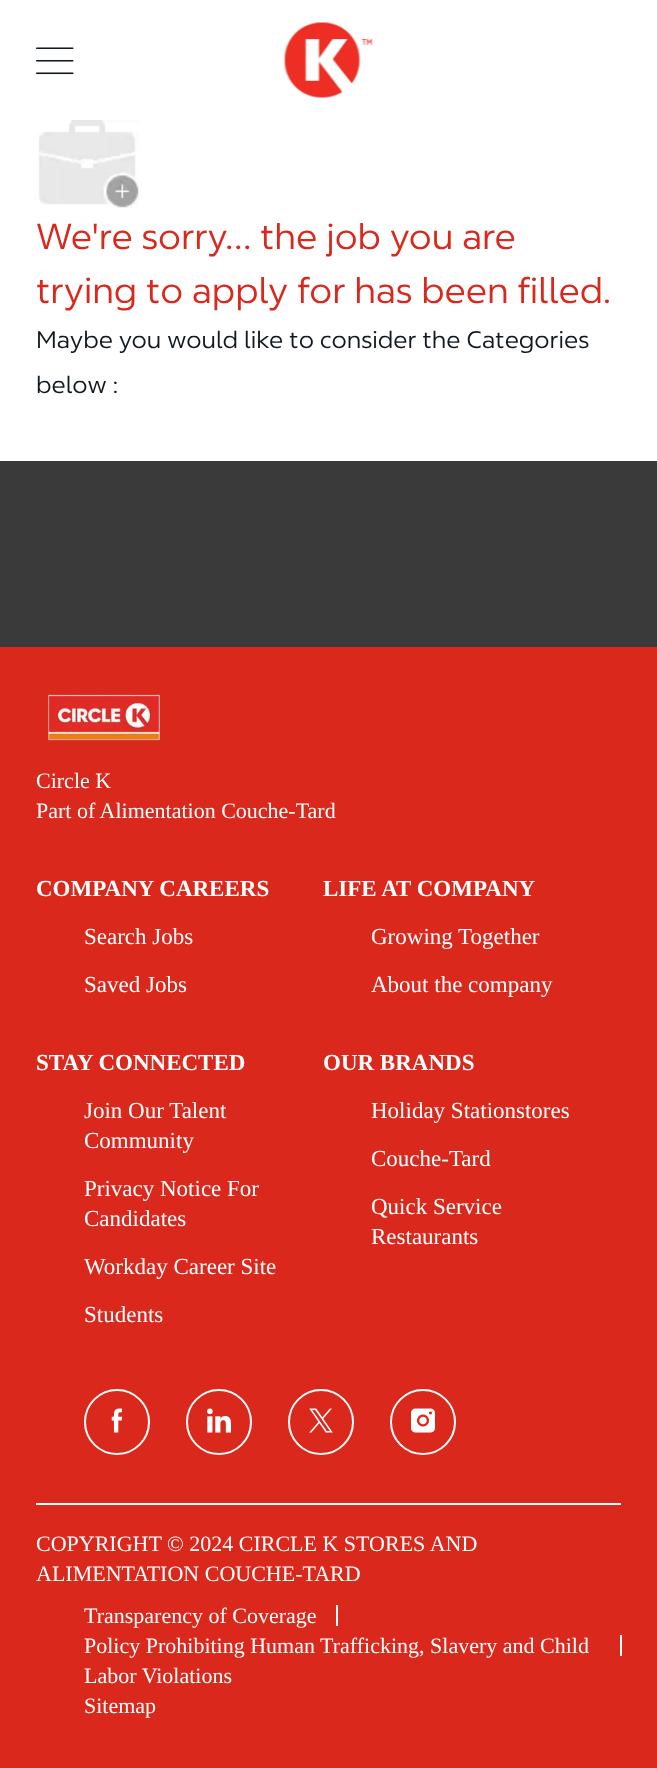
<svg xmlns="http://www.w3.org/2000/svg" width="657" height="1768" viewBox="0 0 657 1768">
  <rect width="100%" height="100%" fill="#ffffff"/>
  <image x="36" y="47" width="38" height="28" href="img1.png"/>
  <image x="284" y="22" width="89" height="76" href="img2.png"/>
  <image x="38" y="120" width="101" height="88" href="img3.png"/>
  <text x="36" y="249" font-family="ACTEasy" font-size="36" fill="#da291c">We're sorry… the job you are</text>
  <text x="36" y="303" font-family="ACTEasy" font-size="36" fill="#da291c">trying to apply for has been filled.</text>
  <text x="36" y="348" font-family="ACTEasy" font-size="24" fill="#101820">Maybe you would like to consider the Categories</text>
  <text x="36" y="393" font-family="ACTEasy" font-size="24" fill="#101820">below :</text>
  <rect x="0" y="461" width="657" height="186" fill="#3a3a3a"/>
  <rect x="0" y="647" width="657" height="1121" fill="#da291c"/>
  <image x="48" y="694" width="114" height="47" href="img4.png"/>
  <text x="36" y="788" font-family="Liberation Serif" font-size="22" fill="#ffffff">Circle K</text>
  <text x="36" y="818" font-family="Liberation Serif" font-size="22" fill="#ffffff">Part of Alimentation Couche-Tard</text>
  <text x="36" y="896" font-family="Liberation Serif" font-size="23" font-weight="bold" fill="#ffffff">COMPANY CAREERS</text>
  <text x="84" y="944" font-family="Liberation Serif" font-size="23" fill="#ffffff">Search Jobs</text>
  <text x="84" y="992" font-family="Liberation Serif" font-size="23" fill="#ffffff">Saved Jobs</text>
  <text x="323" y="896" font-family="Liberation Serif" font-size="23" font-weight="bold" fill="#ffffff">LIFE AT COMPANY</text>
  <text x="371" y="944" font-family="Liberation Serif" font-size="23" fill="#ffffff">Growing Together</text>
  <text x="371" y="992" font-family="Liberation Serif" font-size="23" fill="#ffffff">About the company</text>
  <text x="36" y="1070" font-family="Liberation Serif" font-size="23" font-weight="bold" fill="#ffffff">STAY CONNECTED</text>
  <text x="84" y="1118" font-family="Liberation Serif" font-size="23" fill="#ffffff">Join Our Talent</text>
  <text x="84" y="1148" font-family="Liberation Serif" font-size="23" fill="#ffffff">Community</text>
  <text x="84" y="1196" font-family="Liberation Serif" font-size="23" fill="#ffffff">Privacy Notice For</text>
  <text x="84" y="1226" font-family="Liberation Serif" font-size="23" fill="#ffffff">Candidates</text>
  <text x="84" y="1274" font-family="Liberation Serif" font-size="23" fill="#ffffff">Workday Career Site</text>
  <text x="84" y="1322" font-family="Liberation Serif" font-size="23" fill="#ffffff">Students</text>
  <text x="323" y="1070" font-family="Liberation Serif" font-size="23" font-weight="bold" fill="#ffffff">OUR BRANDS</text>
  <text x="371" y="1118" font-family="Liberation Serif" font-size="23" fill="#ffffff">Holiday Stationstores</text>
  <text x="371" y="1166" font-family="Liberation Serif" font-size="23" fill="#ffffff">Couche-Tard</text>
  <text x="371" y="1214" font-family="Liberation Serif" font-size="23" fill="#ffffff">Quick Service</text>
  <text x="371" y="1244" font-family="Liberation Serif" font-size="23" fill="#ffffff">Restaurants</text>
  <circle cx="117" cy="1422" r="32" fill="none" stroke="#ffffff" stroke-width="2"/>
  <image x="111" y="1408" width="12" height="25" href="img5.png"/>
  <circle cx="219" cy="1422" r="32" fill="none" stroke="#ffffff" stroke-width="2"/>
  <image x="207" y="1408" width="24" height="25" href="img6.png"/>
  <circle cx="321" cy="1422" r="32" fill="none" stroke="#ffffff" stroke-width="2"/>
  <image x="309" y="1408" width="24" height="25" href="img7.png"/>
  <circle cx="423" cy="1422" r="32" fill="none" stroke="#ffffff" stroke-width="2"/>
  <image x="411" y="1408" width="24" height="25" href="img8.png"/>
  <rect x="36" y="1503" width="585" height="2" fill="#ffffff"/>
  <text x="36" y="1551" font-family="Liberation Serif" font-size="22" fill="#ffffff">COPYRIGHT © 2024 CIRCLE K STORES AND</text>
  <text x="36" y="1581" font-family="Liberation Serif" font-size="22" fill="#ffffff">ALIMENTATION COUCHE-TARD</text>
  <text x="84" y="1623" font-family="Liberation Serif" font-size="22" fill="#ffffff">Transparency of Coverage</text>
  <rect x="336" y="1605" width="2" height="21" fill="#ffffff"/>
  <text x="84" y="1653" font-family="Liberation Serif" font-size="22" fill="#ffffff">Policy Prohibiting Human Trafficking, Slavery and Child</text>
  <rect x="620" y="1635" width="2" height="21" fill="#ffffff"/>
  <text x="84" y="1683" font-family="Liberation Serif" font-size="22" fill="#ffffff">Labor Violations</text>
  <text x="84" y="1713" font-family="Liberation Serif" font-size="22" fill="#ffffff">Sitemap</text>
</svg>
